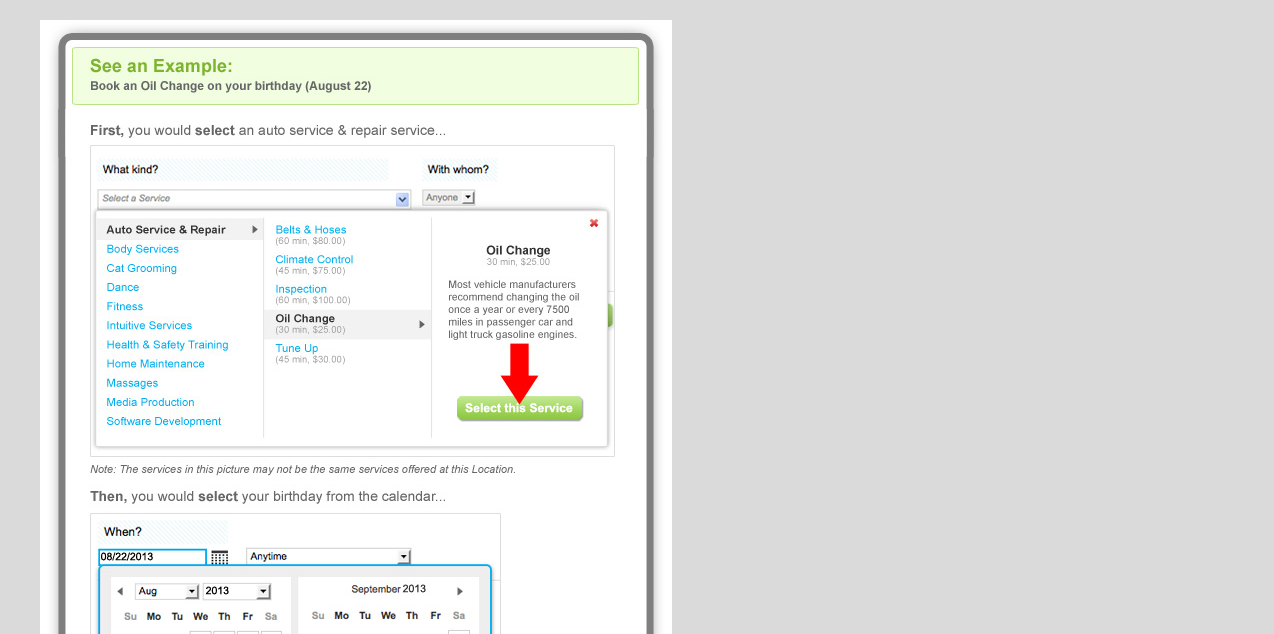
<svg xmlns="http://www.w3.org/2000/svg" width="1274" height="634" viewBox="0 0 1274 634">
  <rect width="100%" height="100%" fill="#dadada"/>
  <image x="40" y="20" width="632" height="614" href="img1.png"/>
</svg>
